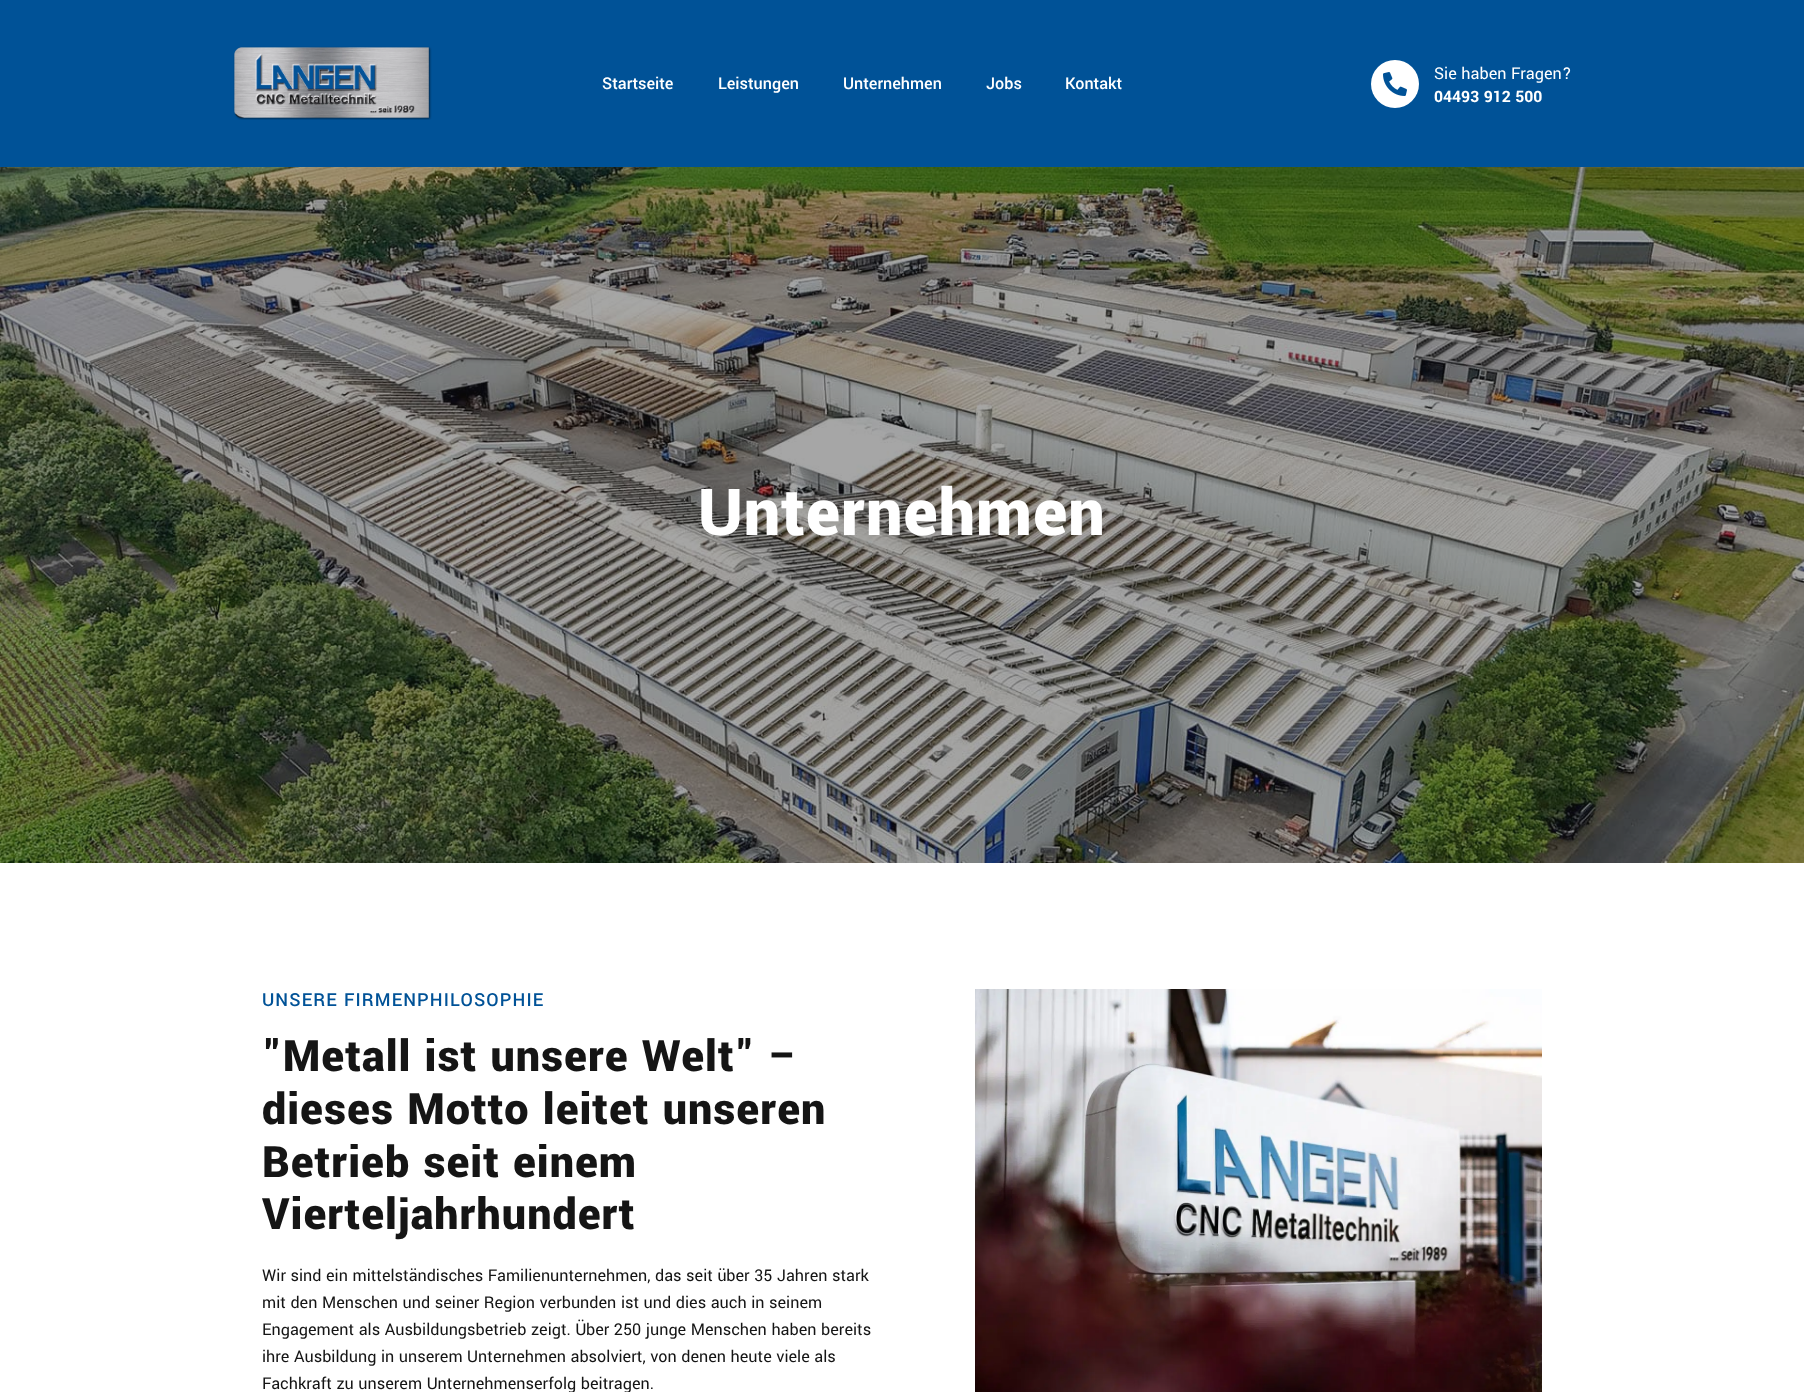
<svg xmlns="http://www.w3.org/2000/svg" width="1804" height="1392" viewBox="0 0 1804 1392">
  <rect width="100%" height="100%" fill="#ffffff"/>
  <rect x="0" y="0" width="1804" height="167" fill="#005297"/>
  <image x="233" y="46" width="199" height="74" href="img1.png"/>
  <text x="602" y="89" font-family="Yantramanav" font-size="18" font-weight="500" fill="#ffffff">Startseite</text>
  <text x="718" y="89" font-family="Yantramanav" font-size="18" font-weight="500" fill="#ffffff">Leistungen</text>
  <text x="843" y="89" font-family="Yantramanav" font-size="18" font-weight="500" fill="#ffffff">Unternehmen</text>
  <text x="986" y="89" font-family="Yantramanav" font-size="18" font-weight="500" fill="#ffffff">Jobs</text>
  <text x="1065" y="89" font-family="Yantramanav" font-size="18" font-weight="500" fill="#ffffff">Kontakt</text>
  <circle cx="1395" cy="84" r="24" fill="#ffffff"/>
  <image x="1383" y="72" width="24" height="24" href="img2.png"/>
  <text x="1434" y="79" font-family="Yantramanav" font-size="18" fill="#ffffff">Sie haben Fragen?</text>
  <text x="1434" y="102" font-family="Yantramanav" font-size="17.5" font-weight="bold" fill="#ffffff">04493 912 500</text>
  <rect x="0" y="167" width="1804" height="696" fill="#151515"/>
  <image x="0" y="167" width="1804" height="696" href="img3.png"/>
  <text x="698" y="535" font-family="Yantramanav" font-size="72" font-weight="900" letter-spacing="1" fill="#ffffff">Unternehmen</text>
  <text x="262" y="1006" font-family="Yantramanav" font-size="20" font-weight="500" letter-spacing="1.1" fill="#005297">UNSERE FIRMENPHILOSOPHIE</text>
  <text x="262" y="1071" font-family="Yantramanav" font-size="48" font-weight="900" letter-spacing="1" fill="#151515">"Metall ist unsere Welt" –</text>
  <text x="262" y="1124" font-family="Yantramanav" font-size="48" font-weight="900" letter-spacing="1" fill="#151515">dieses Motto leitet unseren</text>
  <text x="262" y="1177" font-family="Yantramanav" font-size="48" font-weight="900" letter-spacing="1" fill="#151515">Betrieb seit einem</text>
  <text x="262" y="1229" font-family="Yantramanav" font-size="48" font-weight="900" letter-spacing="1" fill="#151515">Vierteljahrhundert</text>
  <text x="262" y="1281" font-family="Yantramanav" font-size="18" fill="#151515">Wir sind ein mittelständisches Familienunternehmen, das seit über 35 Jahren stark</text>
  <text x="262" y="1308" font-family="Yantramanav" font-size="18" fill="#151515">mit den Menschen und seiner Region verbunden ist und dies auch in seinem</text>
  <text x="262" y="1335" font-family="Yantramanav" font-size="18" fill="#151515">Engagement als Ausbildungsbetrieb zeigt. Über 250 junge Menschen haben bereits</text>
  <text x="262" y="1362" font-family="Yantramanav" font-size="18" fill="#151515">ihre Ausbildung in unserem Unternehmen absolviert, von denen heute viele als</text>
  <text x="262" y="1389" font-family="Yantramanav" font-size="18" fill="#151515">Fachkraft zu unserem Unternehmenserfolg beitragen.</text>
  <image x="975" y="989" width="567" height="403" href="img4.png"/>
</svg>
